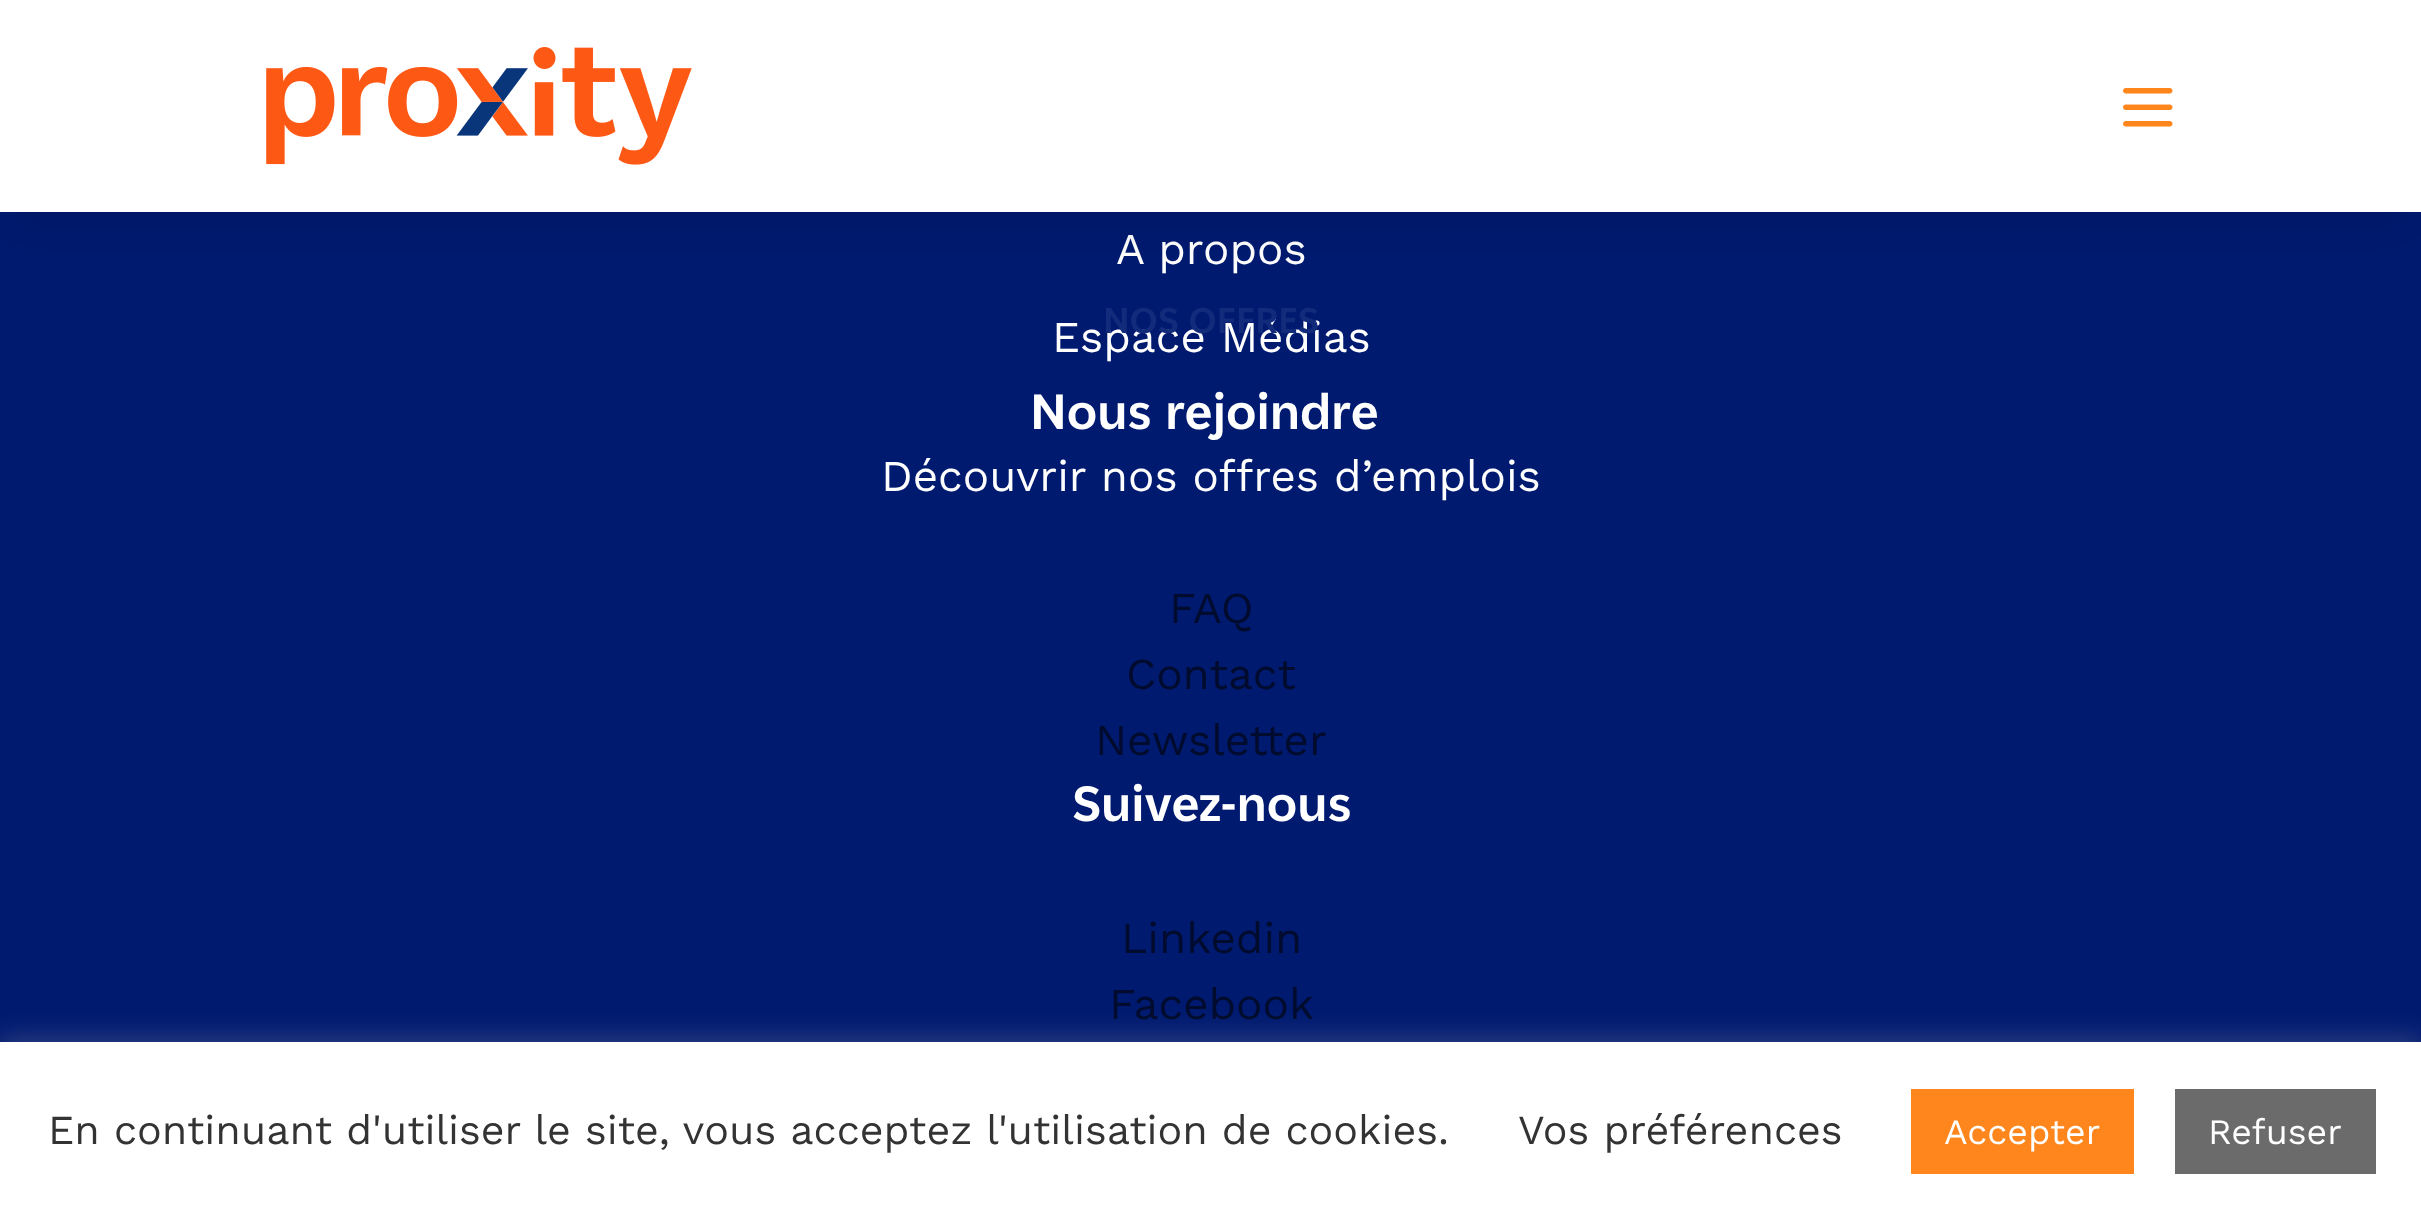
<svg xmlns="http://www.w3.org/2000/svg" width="2421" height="1220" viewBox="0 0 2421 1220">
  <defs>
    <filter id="blur1" x="-50%" y="-200%" width="200%" height="500%"><feGaussianBlur stdDeviation="20.5"/></filter>
    <filter id="blur2" x="-50%" y="-200%" width="200%" height="500%"><feGaussianBlur stdDeviation="14"/></filter>
  </defs>
  <rect width="100%" height="100%" fill="#001a70"/>
  <text x="1116" y="264" font-family="Work Sans" font-size="44" fill="#ffffff">A propos</text>
  <text x="1052" y="352" font-family="Work Sans" font-size="44" fill="#ffffff">Espace Médias</text>
  <text x="1030" y="429" font-family="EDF" font-size="49.5" font-weight="bold" fill="#ffffff">Nous rejoindre</text>
  <text x="881" y="491" font-family="Work Sans" font-size="44" fill="#ffffff">Découvrir nos offres d’emplois</text>
  <text x="1169" y="623" font-family="Work Sans" font-size="44" fill="#000b2d">FAQ</text>
  <text x="1126" y="689" font-family="Work Sans" font-size="44" fill="#000b2d">Contact</text>
  <text x="1095" y="755" font-family="Work Sans" font-size="44" fill="#000b2d">Newsletter</text>
  <text x="1072" y="821" font-family="EDF" font-size="49.5" font-weight="bold" fill="#ffffff">Suivez-nous</text>
  <text x="1121" y="953" font-family="Work Sans" font-size="44" fill="#000b2d">Linkedin</text>
  <text x="1109" y="1019" font-family="Work Sans" font-size="44" fill="#000b2d">Facebook</text>
  <rect x="8" y="36" width="2407" height="195" fill="#000000" fill-opacity="0.1" filter="url(#blur1)"/>
  <rect x="0" y="0" width="2421" height="212" fill="#ffffff"/>
  <image x="266" y="47" width="426" height="118" href="img1.png"/>
  <image x="2123" y="88" width="50" height="39" href="img2.png"/>
  <text x="1103" y="333" font-family="EDF" font-size="35.75" font-weight="bold" fill="#132b7b">NOS OFFRES</text>
  <rect x="0" y="1040" width="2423" height="178" fill="#acabab" fill-opacity="0.3" filter="url(#blur2)"/>
  <rect x="0" y="1042" width="2421" height="178" fill="#ffffff"/>
  <text x="48" y="1144" font-family="Work Sans" font-size="41.25" fill="#333333">En continuant d'utiliser le site, vous acceptez l'utilisation de cookies.</text>
  <text x="1518" y="1144" font-family="Work Sans" font-size="41.25" fill="#333333">Vos préférences</text>
  <rect x="1911" y="1089" width="223" height="85" fill="#ff861d"/>
  <text x="1944" y="1144" font-family="Work Sans" font-size="35.75" fill="#ffffff">Accepter</text>
  <rect x="2175" y="1089" width="201" height="85" fill="#6b6b6b"/>
  <text x="2208" y="1144" font-family="Work Sans" font-size="35.75" fill="#ffffff">Refuser</text>
</svg>
